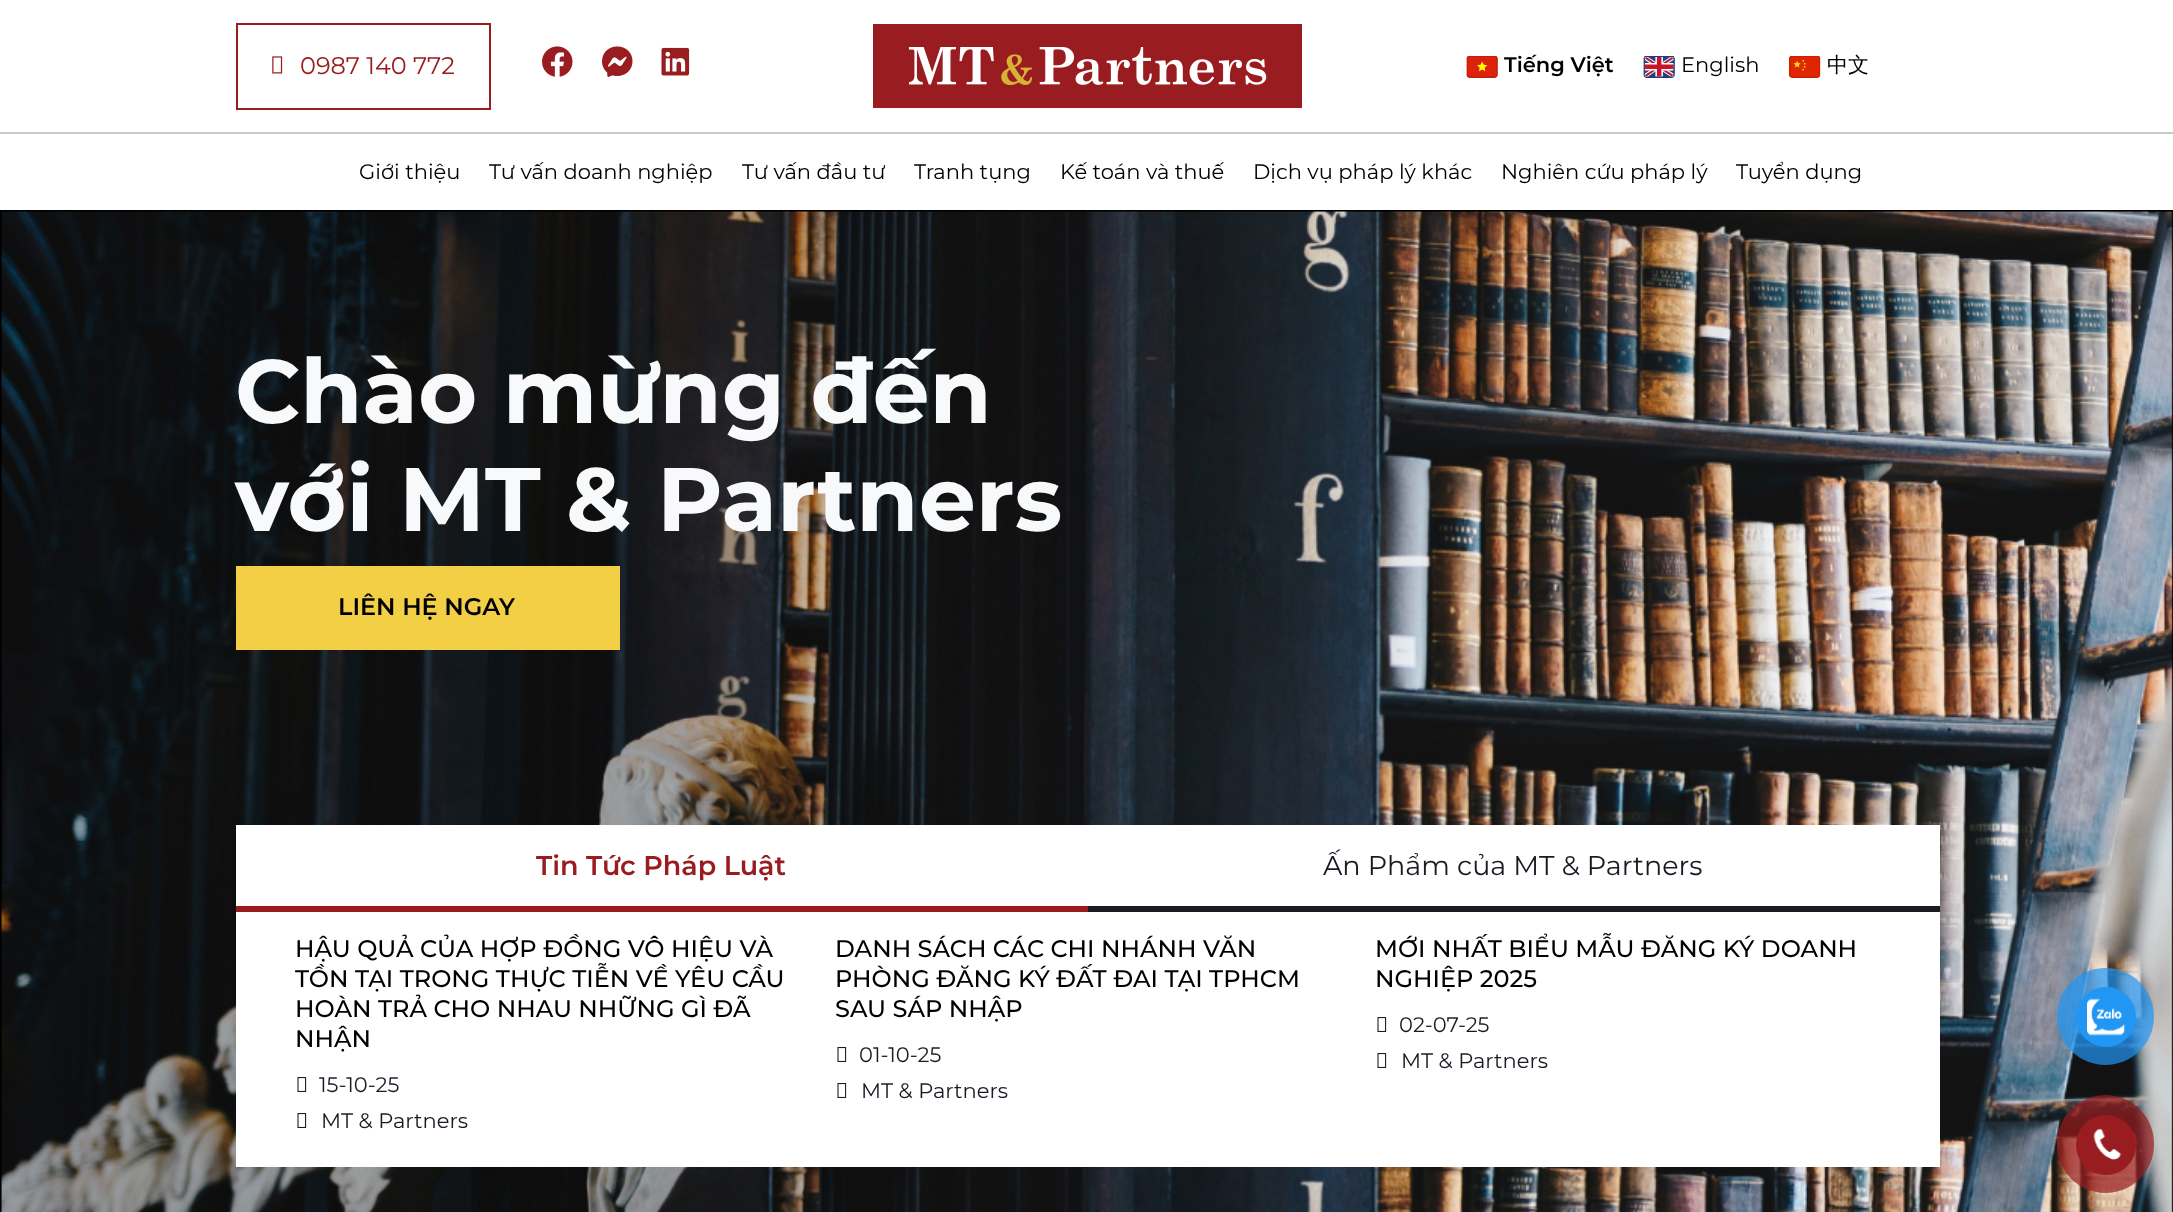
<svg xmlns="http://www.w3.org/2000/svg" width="2173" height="1212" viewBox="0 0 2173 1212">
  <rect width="100%" height="100%" fill="#ffffff"/>
  <rect x="237" y="24" width="253" height="85" fill="none" stroke="#991d20" stroke-width="2"/>
  <image x="272" y="56" width="11" height="18" href="img1.png"/>
  <text x="300" y="74" font-family="Montserrat" font-size="24" fill="#991d20">0987 140 772</text>
  <image x="542" y="46" width="31" height="31" href="img2.png"/>
  <image x="602" y="46" width="31" height="31" href="img3.png"/>
  <image x="661" y="47" width="29" height="29" href="img4.png"/>
  <image x="873" y="24" width="429" height="84" href="img5.png"/>
  <image x="1466" y="56" width="32" height="22" href="img6.png"/>
  <text x="1504" y="72" font-family="Montserrat" font-size="21" font-weight="600" fill="#000000">Tiếng Việt</text>
  <image x="1643" y="56" width="32" height="22" href="img7.png"/>
  <text x="1681" y="72" font-family="Montserrat" font-size="21" fill="#000000">English</text>
  <image x="1789" y="56" width="32" height="22" href="img8.png"/>
  <text x="1827" y="72" font-family="WenQuanYi Zen Hei" font-size="21" font-weight="500" fill="#000000">中文</text>
  <rect x="0" y="132" width="2173" height="2" fill="#c8c9ca"/>
  <text x="359" y="179" font-family="Montserrat" font-size="21" fill="#000000">Giới thiệu</text>
  <text x="489" y="179" font-family="Montserrat" font-size="21" fill="#000000">Tư vấn doanh nghiệp</text>
  <text x="742" y="179" font-family="Montserrat" font-size="21" fill="#000000">Tư vấn đầu tư</text>
  <text x="914" y="179" font-family="Montserrat" font-size="21" fill="#000000">Tranh tụng</text>
  <text x="1060" y="179" font-family="Montserrat" font-size="21" fill="#000000">Kế toán và thuế</text>
  <text x="1253" y="179" font-family="Montserrat" font-size="21" fill="#000000">Dịch vụ pháp lý khác</text>
  <text x="1501" y="179" font-family="Montserrat" font-size="21" fill="#000000">Nghiên cứu pháp lý</text>
  <text x="1736" y="179" font-family="Montserrat" font-size="21" fill="#000000">Tuyển dụng</text>
  <image x="0" y="210" width="2173" height="1002" href="img9.png"/>
  <text x="235" y="423" font-family="Montserrat" font-size="90" font-weight="bold" fill="#f8f9fa">Chào mừng đến</text>
  <text x="235" y="531" font-family="Montserrat" font-size="90" font-weight="bold" fill="#f8f9fa">với MT &amp; Partners</text>
  <rect x="236" y="566" width="384" height="84" fill="#f3cf46"/>
  <text x="338" y="615" font-family="Montserrat" font-size="24" font-weight="600" fill="#000000">LIÊN HỆ NGAY</text>
  <rect x="236" y="825" width="1704" height="342" fill="#ffffff"/>
  <rect x="236" y="906" width="852" height="6" fill="#991b1e"/>
  <text x="536" y="875" font-family="Montserrat" font-size="27" font-weight="600" fill="#991d20">Tin Tức Pháp Luật</text>
  <rect x="1088" y="906" width="852" height="6" fill="#191b24"/>
  <text x="1323" y="875" font-family="Montserrat" font-size="27" fill="#191b24">Ấn Phẩm của MT &amp; Partners</text>
  <text x="295" y="957" font-family="Montserrat" font-size="24" font-weight="500" fill="#000000">HẬU QUẢ CỦA HỢP ĐỒNG VÔ HIỆU VÀ</text>
  <text x="295" y="987" font-family="Montserrat" font-size="24" font-weight="500" fill="#000000">TỒN TẠI TRONG THỰC TIỄN VỀ YÊU CẦU</text>
  <text x="295" y="1017" font-family="Montserrat" font-size="24" font-weight="500" fill="#000000">HOÀN TRẢ CHO NHAU NHỮNG GÌ ĐÃ</text>
  <text x="295" y="1047" font-family="Montserrat" font-size="24" font-weight="500" fill="#000000">NHẬN</text>
  <image x="297" y="1077" width="10" height="15" href="img10.png"/>
  <text x="319" y="1092" font-family="Montserrat" font-size="21" fill="#191b24">15-10-25</text>
  <image x="297" y="1113" width="10" height="15" href="img10.png"/>
  <text x="321" y="1128" font-family="Montserrat" font-size="21" fill="#191b24">MT &amp; Partners</text>
  <text x="835" y="957" font-family="Montserrat" font-size="24" font-weight="500" fill="#000000">DANH SÁCH CÁC CHI NHÁNH VĂN</text>
  <text x="835" y="987" font-family="Montserrat" font-size="24" font-weight="500" fill="#000000">PHÒNG ĐĂNG KÝ ĐẤT ĐAI TẠI TPHCM</text>
  <text x="835" y="1017" font-family="Montserrat" font-size="24" font-weight="500" fill="#000000">SAU SÁP NHẬP</text>
  <image x="837" y="1047" width="10" height="15" href="img10.png"/>
  <text x="859" y="1062" font-family="Montserrat" font-size="21" fill="#191b24">01-10-25</text>
  <image x="837" y="1083" width="10" height="15" href="img10.png"/>
  <text x="861" y="1098" font-family="Montserrat" font-size="21" fill="#191b24">MT &amp; Partners</text>
  <text x="1375" y="957" font-family="Montserrat" font-size="24" font-weight="500" fill="#000000">MỚI NHẤT BIỂU MẪU ĐĂNG KÝ DOANH</text>
  <text x="1375" y="987" font-family="Montserrat" font-size="24" font-weight="500" fill="#000000">NGHIỆP 2025</text>
  <image x="1377" y="1017" width="10" height="15" href="img10.png"/>
  <text x="1399" y="1032" font-family="Montserrat" font-size="21" fill="#191b24">02-07-25</text>
  <image x="1377" y="1053" width="10" height="15" href="img10.png"/>
  <text x="1401" y="1068" font-family="Montserrat" font-size="21" fill="#191b24">MT &amp; Partners</text>
  <circle cx="2105.5" cy="1016.5" r="48.5" fill="#2196f3" fill-opacity="0.7"/>
  <circle cx="2106" cy="1017" r="30" fill="#2196f3"/>
  <image x="2087" y="998" width="38" height="38" href="img11.png"/>
  <rect x="2057" y="1095" width="97" height="98" rx="48.5" fill="#991d20" fill-opacity="0.7"/>
  <circle cx="2106" cy="1145" r="30" fill="#991d20"/>
  <image x="2093" y="1128" width="28" height="32" href="img12.png"/>
</svg>
